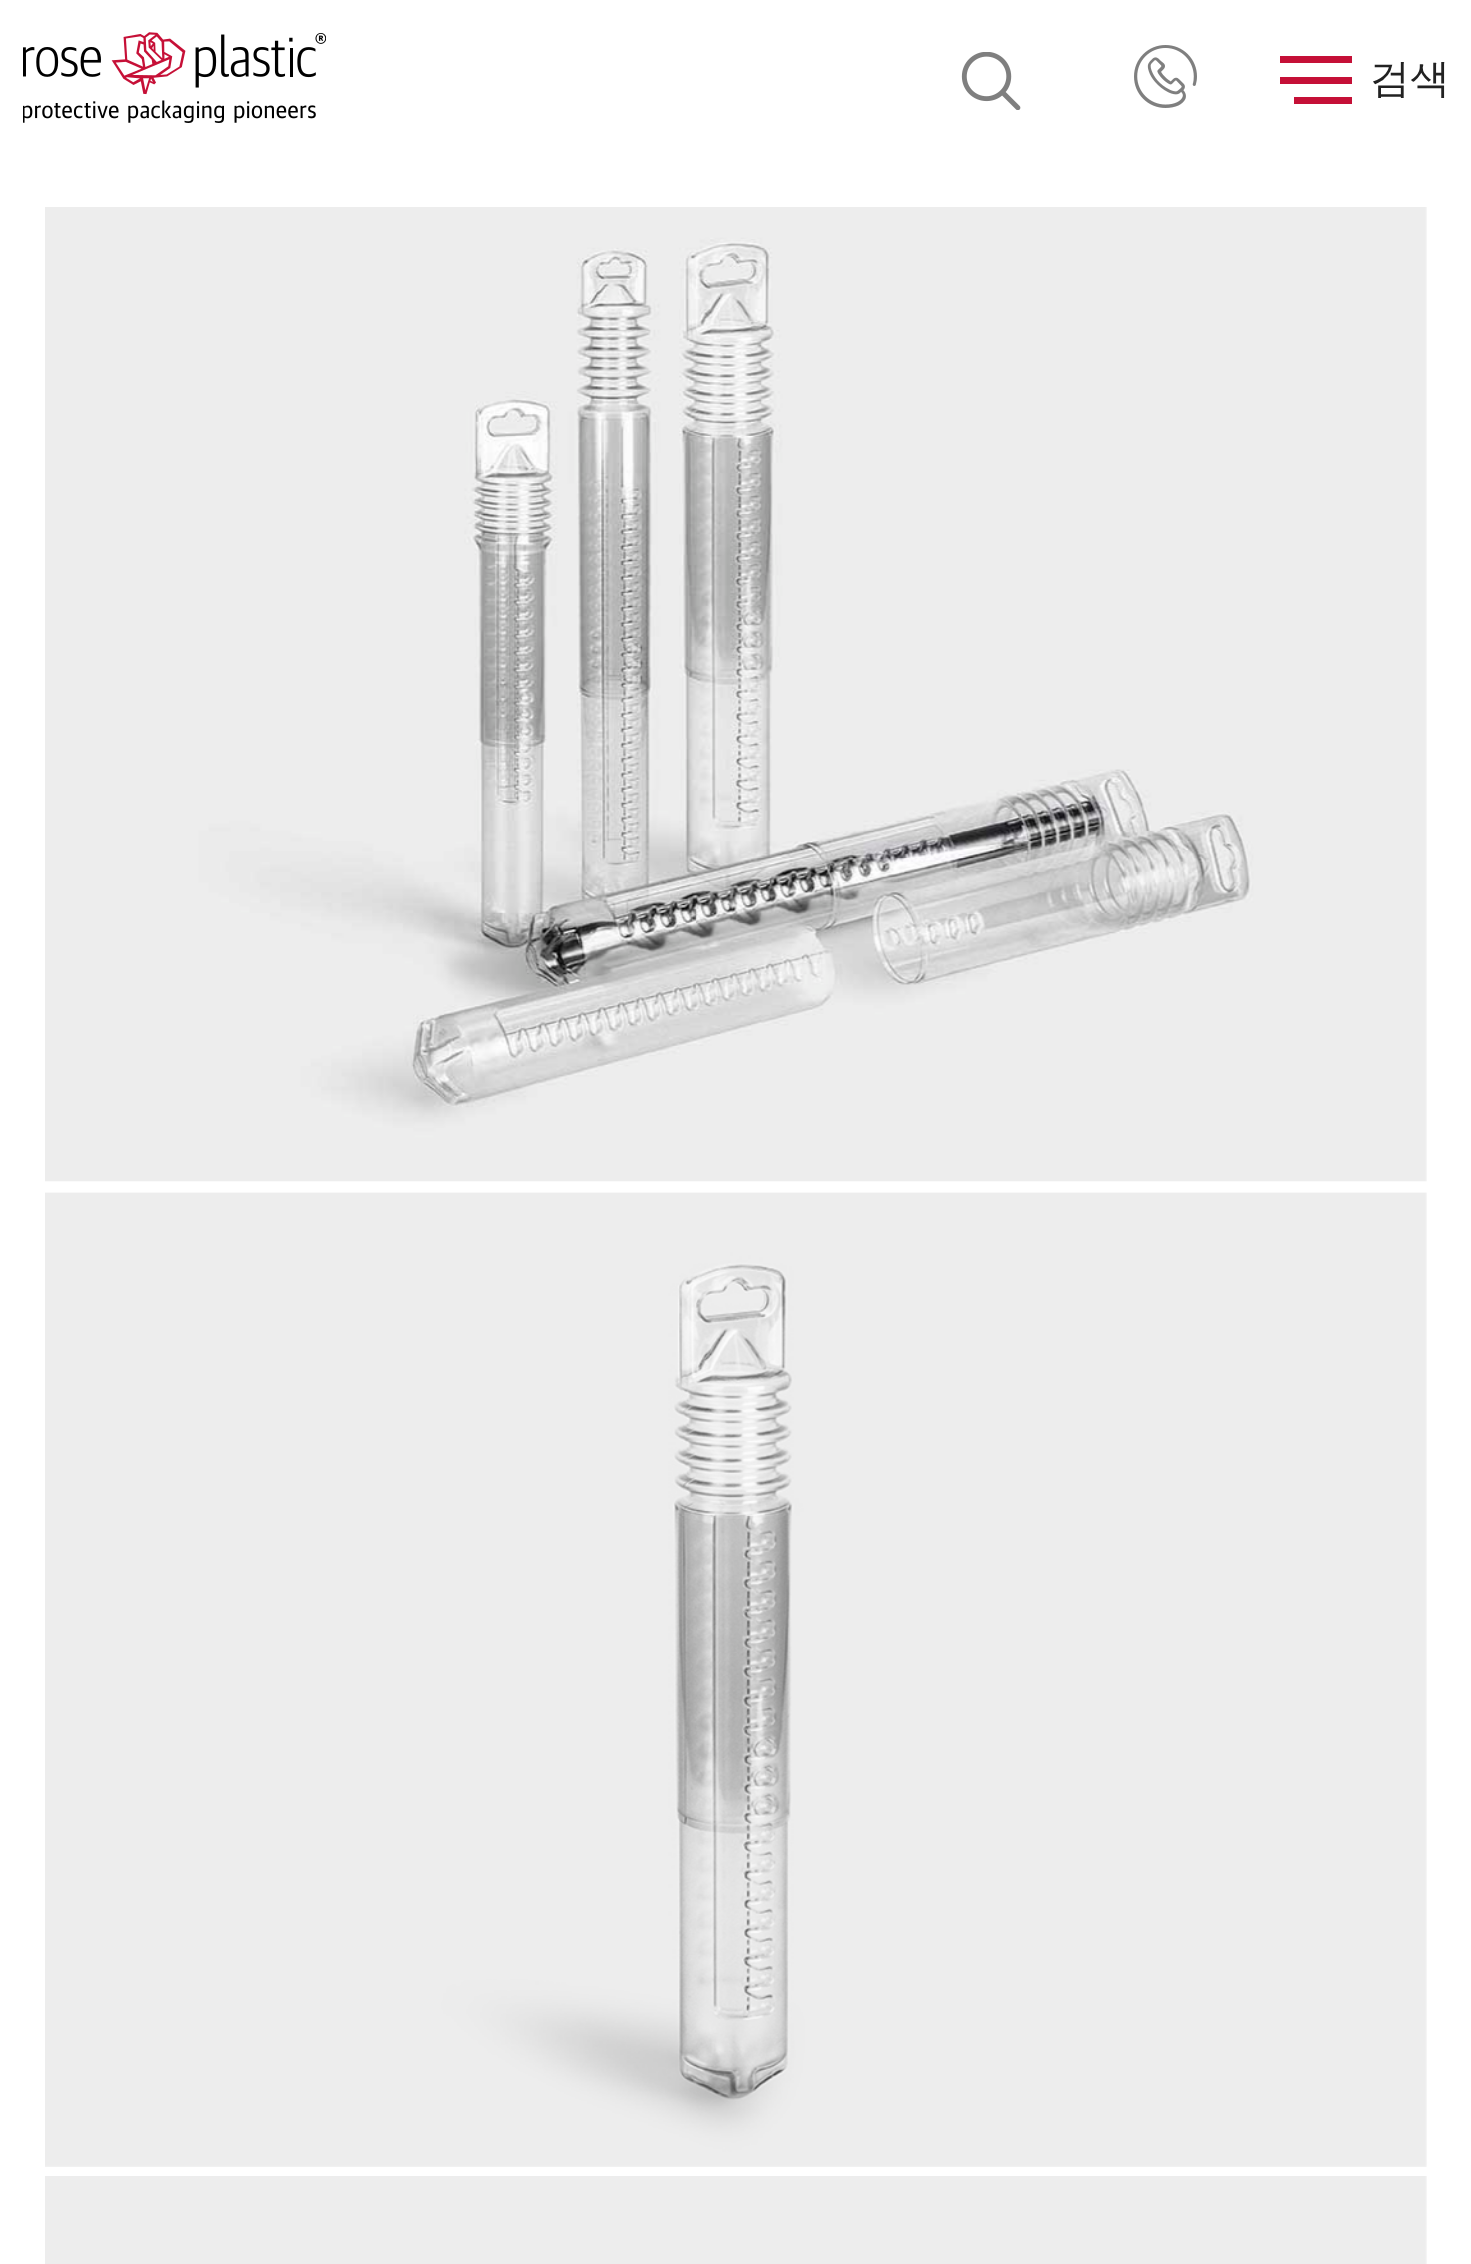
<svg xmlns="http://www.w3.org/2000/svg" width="1471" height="2264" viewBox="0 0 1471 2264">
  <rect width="100%" height="100%" fill="#ffffff"/>
  <image x="23" y="32" width="303" height="91" href="img1.png"/>
  <image x="961" y="52" width="60" height="58" href="img2.png"/>
  <image x="1134" y="45" width="63" height="63" href="img3.png"/>
  <rect x="1280" y="56" width="72" height="7" fill="#c51037"/>
  <rect x="1280" y="77" width="72" height="7" fill="#c51037"/>
  <rect x="1294" y="97" width="58" height="7" fill="#c51037"/>
  <text x="1370" y="92" font-family="WenQuanYi Zen Hei" font-size="40" font-weight="500" fill="#222222">검색</text>
  <image x="45" y="207" width="1382" height="975" href="img4.png"/>
  <image x="45" y="1192" width="1382" height="975" href="img5.png"/>
  <image x="45" y="2176" width="1382" height="88" href="img6.png"/>
</svg>
